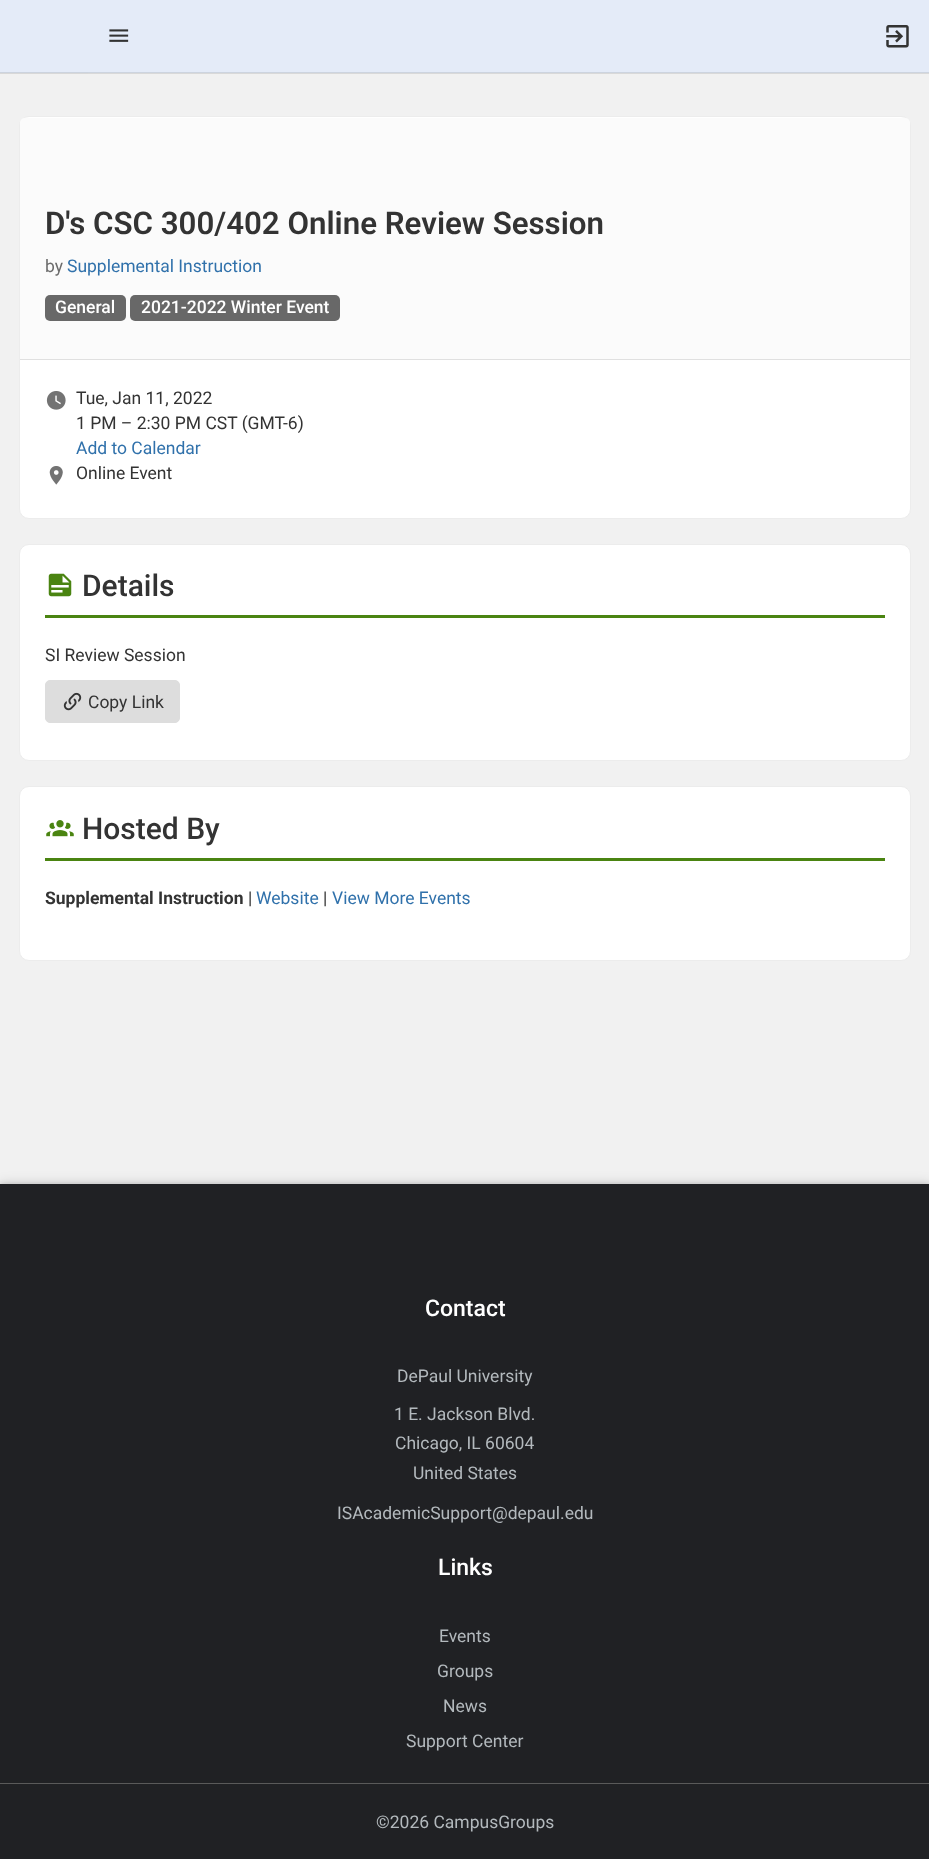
<svg xmlns="http://www.w3.org/2000/svg" width="929" height="1859" viewBox="0 0 929 1859">
  <defs>
    <filter id="blur1" x="-50%" y="-200%" width="200%" height="500%"><feGaussianBlur stdDeviation="6"/></filter>
    <filter id="blur2" x="-50%" y="-200%" width="200%" height="500%"><feGaussianBlur stdDeviation="2"/></filter>
  </defs>
  <rect width="100%" height="100%" fill="#f1f1f1"/>
  <rect x="88" y="73" width="841" height="1" fill="#d9d9d9"/>
  <rect x="0" y="0" width="929" height="73" fill="#e4ebf8"/>
  <rect x="88" y="72" width="841" height="1" fill="#cdd4df"/>
  <image x="109" y="29" width="20" height="13" href="img1.png"/>
  <image x="886" y="25" width="23" height="23" href="img2.png"/>
  <path d="M0 72V74H88V1V72Z" fill="#000000" fill-opacity="0.1"/>
  <rect x="19.5" y="116.5" width="891" height="402" rx="9.5" fill="#ffffff" stroke="#ececec"/>
  <path d="M25 118H905C908 118 910 120 910 123V359H20V123C20 120 22 118 25 118Z" fill="#fbfbfb"/>
  <text x="45" y="234" font-family="Roboto" font-size="31.25" font-weight="600" fill="#333333">D's CSC 300/402 Online Review Session</text>
  <text x="45" y="272" font-family="Roboto" font-size="17.5" fill="#6c6c6c">by</text>
  <text x="67" y="272" font-family="Roboto" font-size="17.5" fill="#3071ab">Supplemental Instruction</text>
  <rect x="45" y="295" width="81" height="26" rx="5" fill="#686868"/>
  <text x="55" y="313" font-family="Roboto" font-size="17.5" font-weight="500" fill="#ffffff">General</text>
  <rect x="130" y="295" width="210" height="26" rx="5" fill="#686868"/>
  <text x="141" y="313" font-family="Roboto" font-size="17.5" font-weight="500" fill="#ffffff">2021-2022 Winter Event</text>
  <rect x="20" y="359" width="890" height="1" fill="#e0e0e0"/>
  <image x="46" y="391" width="20" height="19" href="img3.png"/>
  <text x="76" y="404" font-family="Roboto" font-size="17.5" fill="#333333">Tue, Jan 11, 2022</text>
  <text x="76" y="429" font-family="Roboto" font-size="17.5" fill="#333333">1 PM – 2:30 PM CST (GMT-6)</text>
  <text x="76" y="454" font-family="Roboto" font-size="17.5" fill="#3071ab">Add to Calendar</text>
  <image x="49" y="466" width="14" height="19" href="img4.png"/>
  <text x="76" y="479" font-family="Roboto" font-size="17.5" fill="#333333">Online Event</text>
  <rect x="19.5" y="544.5" width="891" height="216" rx="9.5" fill="#ffffff" stroke="#ececec"/>
  <image x="48" y="573" width="24" height="24" href="img5.png"/>
  <text x="82" y="596" font-family="Roboto" font-size="30" font-weight="500" fill="#333333">Details</text>
  <rect x="45" y="615" width="840" height="3" fill="#4a8411"/>
  <text x="45" y="661" font-family="Roboto" font-size="17.5" fill="#333333">SI Review Session</text>
  <rect x="45.5" y="680.5" width="134" height="42" rx="4.5" fill="#dddddd" stroke="#dddddd"/>
  <image x="63" y="692" width="19" height="19" href="img6.png"/>
  <text x="88" y="708" font-family="Roboto" font-size="17.5" fill="#333333">Copy Link</text>
  <rect x="19.5" y="786.5" width="891" height="174" rx="9.5" fill="#ffffff" stroke="#ececec"/>
  <image x="46" y="820" width="28" height="17" href="img7.png"/>
  <text x="82" y="839" font-family="Roboto" font-size="30" font-weight="500" fill="#333333">Hosted By</text>
  <rect x="45" y="858" width="840" height="3" fill="#4a8411"/>
  <text x="45" y="904" font-family="Roboto" font-size="17.5" font-weight="bold" fill="#333333">Supplemental Instruction</text>
  <text x="248" y="904" font-family="Roboto" font-size="17.5" fill="#333333">|</text>
  <text x="256" y="904" font-family="Roboto" font-size="17.5" fill="#3071ab">Website</text>
  <text x="323" y="904" font-family="Roboto" font-size="17.5" fill="#333333">|</text>
  <text x="332" y="904" font-family="Roboto" font-size="17.5" fill="#3071ab">View More Events</text>
  <rect x="0" y="1183" width="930" height="676" fill="#000000" fill-opacity="0.14" filter="url(#blur1)"/>
  <rect x="0" y="1183" width="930" height="676" fill="#000000" fill-opacity="0.1" filter="url(#blur2)"/>
  <rect x="0" y="1184" width="929" height="675" fill="#202124"/>
  <text x="425" y="1316" font-family="Roboto" font-size="23" font-weight="500" fill="#ffffff">Contact</text>
  <text x="397" y="1382" font-family="Roboto" font-size="17.5" fill="#b3b9bd">DePaul University</text>
  <text x="394" y="1420" font-family="Roboto" font-size="17.5" fill="#b3b9bd">1 E. Jackson Blvd.</text>
  <text x="395" y="1449" font-family="Roboto" font-size="17.5" fill="#b3b9bd">Chicago, IL 60604</text>
  <text x="413" y="1479" font-family="Roboto" font-size="17.5" fill="#b3b9bd">United States</text>
  <text x="337" y="1519" font-family="Roboto" font-size="17.5" fill="#b3b9bd">ISAcademicSupport@depaul.edu</text>
  <text x="438" y="1575" font-family="Roboto" font-size="23" font-weight="500" fill="#ffffff">Links</text>
  <text x="439" y="1642" font-family="Roboto" font-size="17.5" fill="#b3b9bd">Events</text>
  <text x="437" y="1677" font-family="Roboto" font-size="17.5" fill="#b3b9bd">Groups</text>
  <text x="443" y="1712" font-family="Roboto" font-size="17.5" fill="#b3b9bd">News</text>
  <text x="406" y="1747" font-family="Roboto" font-size="17.5" fill="#b3b9bd">Support Center</text>
  <rect x="0" y="1783" width="929" height="1" fill="#5a5a5a"/>
  <text x="376" y="1828" font-family="Roboto" font-size="17.5" fill="#b3b9bd">©2026 CampusGroups</text>
</svg>
